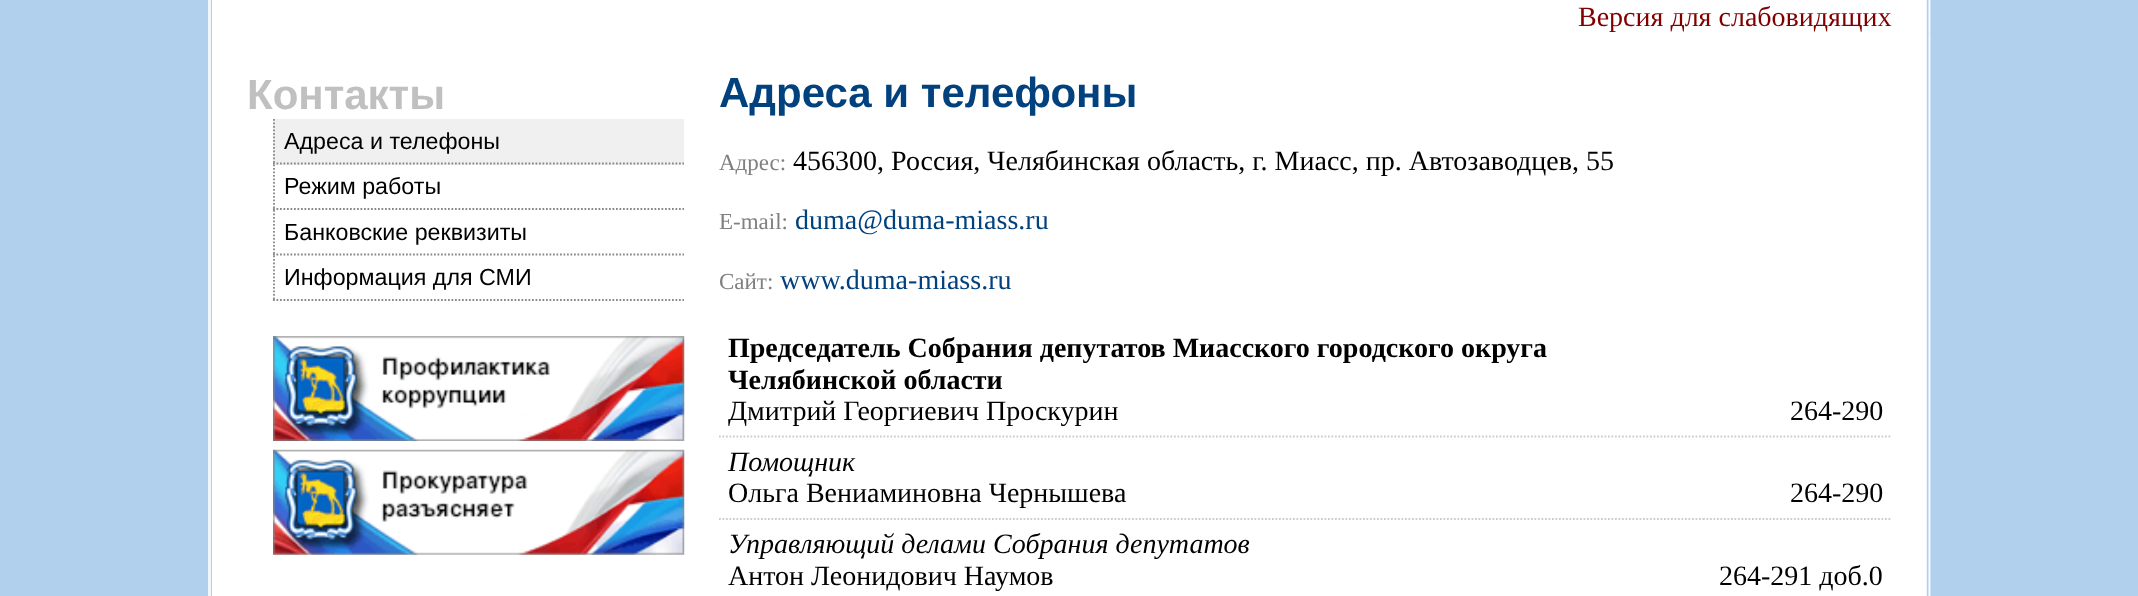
<svg xmlns="http://www.w3.org/2000/svg" width="2138" height="596" viewBox="0 0 2138 596">
  <rect width="100%" height="100%" fill="#b1d0ed"/>
  <rect x="208" y="0" width="3" height="596" fill="#f0f6fb"/>
  <rect x="212" y="0" width="1715" height="33" fill="#ffffff"/>
  <text x="1578" y="26" font-family="Liberation Serif" font-size="28" fill="#800000">Версия для слабовидящих</text>
  <image x="1926" y="0" width="5" height="34" href="img1.png"/>
  <rect x="212" y="33" width="1715" height="563" fill="#ffffff"/>
  <text x="247" y="109" font-family="Liberation Sans" font-size="42" font-weight="bold" fill="#c0c0c0">Контакты</text>
  <rect x="273" y="119" width="411" height="46" fill="#f0f0f0"/>
  <path d="M273 163.5H684" fill="none" stroke="#888888" stroke-width="1.8" stroke-dasharray="1.75 1.75"/>
  <path d="M274 119V164.5" fill="none" stroke="#888888" stroke-width="1.8" stroke-dasharray="1.75 1.75"/>
  <text x="284" y="149" font-family="Liberation Sans" font-size="23.25" fill="#000000">Адреса и телефоны</text>
  <path d="M273 209H684" fill="none" stroke="#888888" stroke-width="1.8" stroke-dasharray="1.75 1.75"/>
  <path d="M274 164.5V210" fill="none" stroke="#888888" stroke-width="1.8" stroke-dasharray="1.75 1.75"/>
  <text x="284" y="194" font-family="Liberation Sans" font-size="23.25" fill="#000000">Режим работы</text>
  <path d="M273 254.5H684" fill="none" stroke="#888888" stroke-width="1.8" stroke-dasharray="1.75 1.75"/>
  <path d="M274 210V255.5" fill="none" stroke="#888888" stroke-width="1.8" stroke-dasharray="1.75 1.75"/>
  <text x="284" y="240" font-family="Liberation Sans" font-size="23.25" fill="#000000">Банковские реквизиты</text>
  <path d="M273 300H684" fill="none" stroke="#888888" stroke-width="1.8" stroke-dasharray="1.75 1.75"/>
  <path d="M274 255.5V301" fill="none" stroke="#888888" stroke-width="1.8" stroke-dasharray="1.75 1.75"/>
  <text x="284" y="285" font-family="Liberation Sans" font-size="23.25" fill="#000000">Информация для СМИ</text>
  <image x="273" y="336" width="412" height="105" href="img2.png"/>
  <image x="273" y="449" width="412" height="106" href="img3.png"/>
  <text x="719" y="107" font-family="Liberation Sans" font-size="42" font-weight="bold" fill="#01417e">Адреса и телефоны</text>
  <text x="719" y="170" font-family="Liberation Serif" font-size="23" fill="#808080">Адрес:</text>
  <text x="793" y="170" font-family="Liberation Serif" font-size="28" fill="#000000">456300, Россия, Челябинская область, г. Миасс, пр. Автозаводцев, 55</text>
  <text x="719" y="229" font-family="Liberation Serif" font-size="23" fill="#808080">E-mail:</text>
  <text x="795" y="229" font-family="Liberation Serif" font-size="28" fill="#01417e">duma@duma-miass.ru</text>
  <text x="719" y="289" font-family="Liberation Serif" font-size="23" fill="#808080">Сайт:</text>
  <text x="780" y="289" font-family="Liberation Serif" font-size="28" fill="#01417e">www.duma-miass.ru</text>
  <path d="M719 436.5H1703" fill="none" stroke="#cccccc" stroke-width="1.8" stroke-dasharray="1.75 1.75"/>
  <text x="728" y="357" font-family="Liberation Serif" font-size="28" font-weight="bold" fill="#000000">Председатель Собрания депутатов Миасского городского округа</text>
  <text x="728" y="389" font-family="Liberation Serif" font-size="28" font-weight="bold" fill="#000000">Челябинской области</text>
  <text x="728" y="420" font-family="Liberation Serif" font-size="28" fill="#000000">Дмитрий Георгиевич Проскурин</text>
  <path d="M1703 436.5H1892" fill="none" stroke="#cccccc" stroke-width="1.8" stroke-dasharray="1.75 1.75"/>
  <text x="1790" y="420" font-family="Liberation Serif" font-size="28" fill="#000000">264-290</text>
  <path d="M719 519H1703" fill="none" stroke="#cccccc" stroke-width="1.8" stroke-dasharray="1.75 1.75"/>
  <text x="728" y="471" font-family="Liberation Serif" font-size="28" font-style="italic" fill="#000000">Помощник</text>
  <text x="728" y="502" font-family="Liberation Serif" font-size="28" fill="#000000">Ольга Вениаминовна Чернышева</text>
  <path d="M1703 519H1892" fill="none" stroke="#cccccc" stroke-width="1.8" stroke-dasharray="1.75 1.75"/>
  <text x="1790" y="502" font-family="Liberation Serif" font-size="28" fill="#000000">264-290</text>
  <text x="728" y="553" font-family="Liberation Serif" font-size="28" font-style="italic" fill="#000000">Управляющий делами Собрания депутатов</text>
  <text x="728" y="585" font-family="Liberation Serif" font-size="28" fill="#000000">Антон Леонидович Наумов</text>
  <text x="1719" y="585" font-family="Liberation Serif" font-size="28" fill="#000000">264-291 доб.0</text>
  <image x="1926" y="33" width="5" height="563" href="img4.png"/>
</svg>
